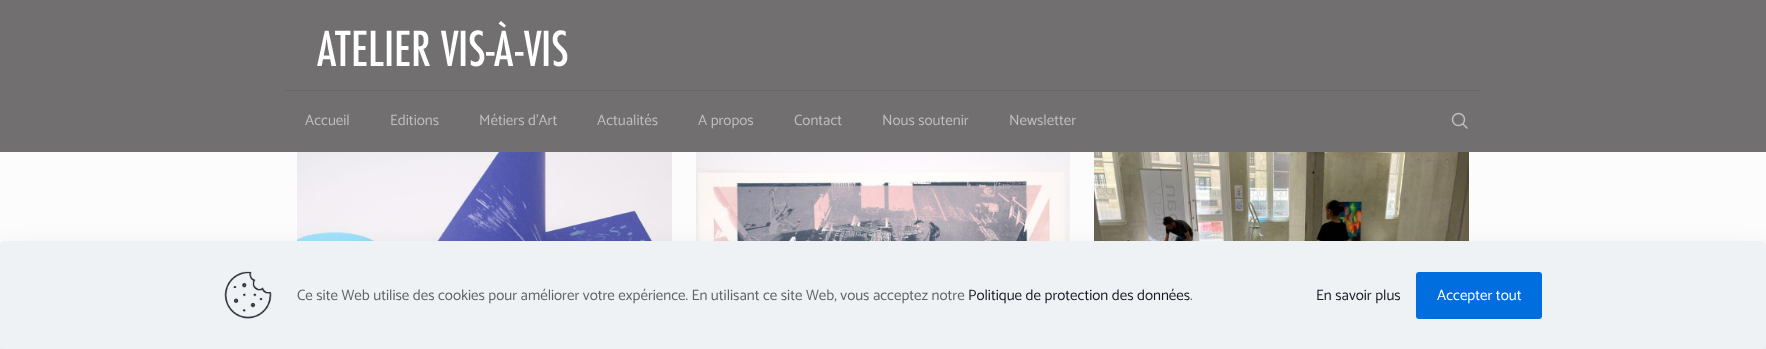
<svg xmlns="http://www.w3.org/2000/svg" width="1766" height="349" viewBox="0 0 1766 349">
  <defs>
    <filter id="blur1" x="-50%" y="-200%" width="200%" height="500%"><feGaussianBlur stdDeviation="15"/></filter>
  </defs>
  <rect width="100%" height="100%" fill="#716f6f"/>
  <rect x="285" y="90" width="1196" height="1" fill="#686666"/>
  <image x="317" y="21" width="251" height="46" href="img1.png"/>
  <text x="305" y="125" font-family="Catamaran" font-size="15" font-weight="100" fill="#bfbfbf">Accueil</text>
  <text x="390" y="125" font-family="Catamaran" font-size="15" font-weight="100" fill="#bfbfbf">Editions</text>
  <text x="479" y="125" font-family="Catamaran" font-size="15" font-weight="100" fill="#bfbfbf">Métiers d’Art</text>
  <text x="597" y="125" font-family="Catamaran" font-size="15" font-weight="100" fill="#bfbfbf">Actualités</text>
  <text x="698" y="125" font-family="Catamaran" font-size="15" font-weight="100" fill="#bfbfbf">A propos</text>
  <text x="794" y="125" font-family="Catamaran" font-size="15" font-weight="100" fill="#bfbfbf">Contact</text>
  <text x="882" y="125" font-family="Catamaran" font-size="15" font-weight="100" fill="#bfbfbf">Nous soutenir</text>
  <text x="1009" y="125" font-family="Catamaran" font-size="15" font-weight="100" fill="#bfbfbf">Newsletter</text>
  <circle cx="1458.5" cy="119.5" r="6" fill="none" stroke="#bfbfbf" stroke-width="1.5"/>
  <path d="M1462.5 123.5L1467.5 128.5" fill="none" stroke="#bfbfbf" stroke-width="1.5"/>
  <rect x="0" y="152" width="1766" height="197" fill="#fcfcfc"/>
  <image x="297" y="152" width="375" height="89" href="img2.png"/>
  <image x="696" y="152" width="374" height="89" href="img3.png"/>
  <image x="1094" y="152" width="375" height="89" href="img4.png"/>
  <rect x="0" y="256" width="1766" height="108" rx="5" fill="#010727" fill-opacity="0.13" filter="url(#blur1)"/>
  <rect x="0" y="241" width="1766" height="108" rx="5" fill="#eef2f5"/>
  <image x="224" y="271" width="48" height="48" href="img5.png"/>
  <text x="297" y="300" font-family="Catamaran" font-size="15" font-weight="100" fill="#626262">Ce site Web utilise des cookies pour améliorer votre expérience. En utilisant ce site Web, vous acceptez notre</text>
  <text x="968" y="300" font-family="Catamaran" font-size="15" font-weight="100" fill="#161922">Politique de protection des données</text>
  <text x="1190" y="300" font-family="Catamaran" font-size="15" font-weight="100" fill="#626262">.</text>
  <text x="1316" y="300" font-family="Catamaran" font-size="15" font-weight="100" fill="#161922">En savoir plus</text>
  <rect x="1416" y="272" width="126" height="47" rx="3" fill="#006edf"/>
  <text x="1437" y="300" font-family="Catamaran" font-size="15" font-weight="100" fill="#ffffff">Accepter tout</text>
</svg>
